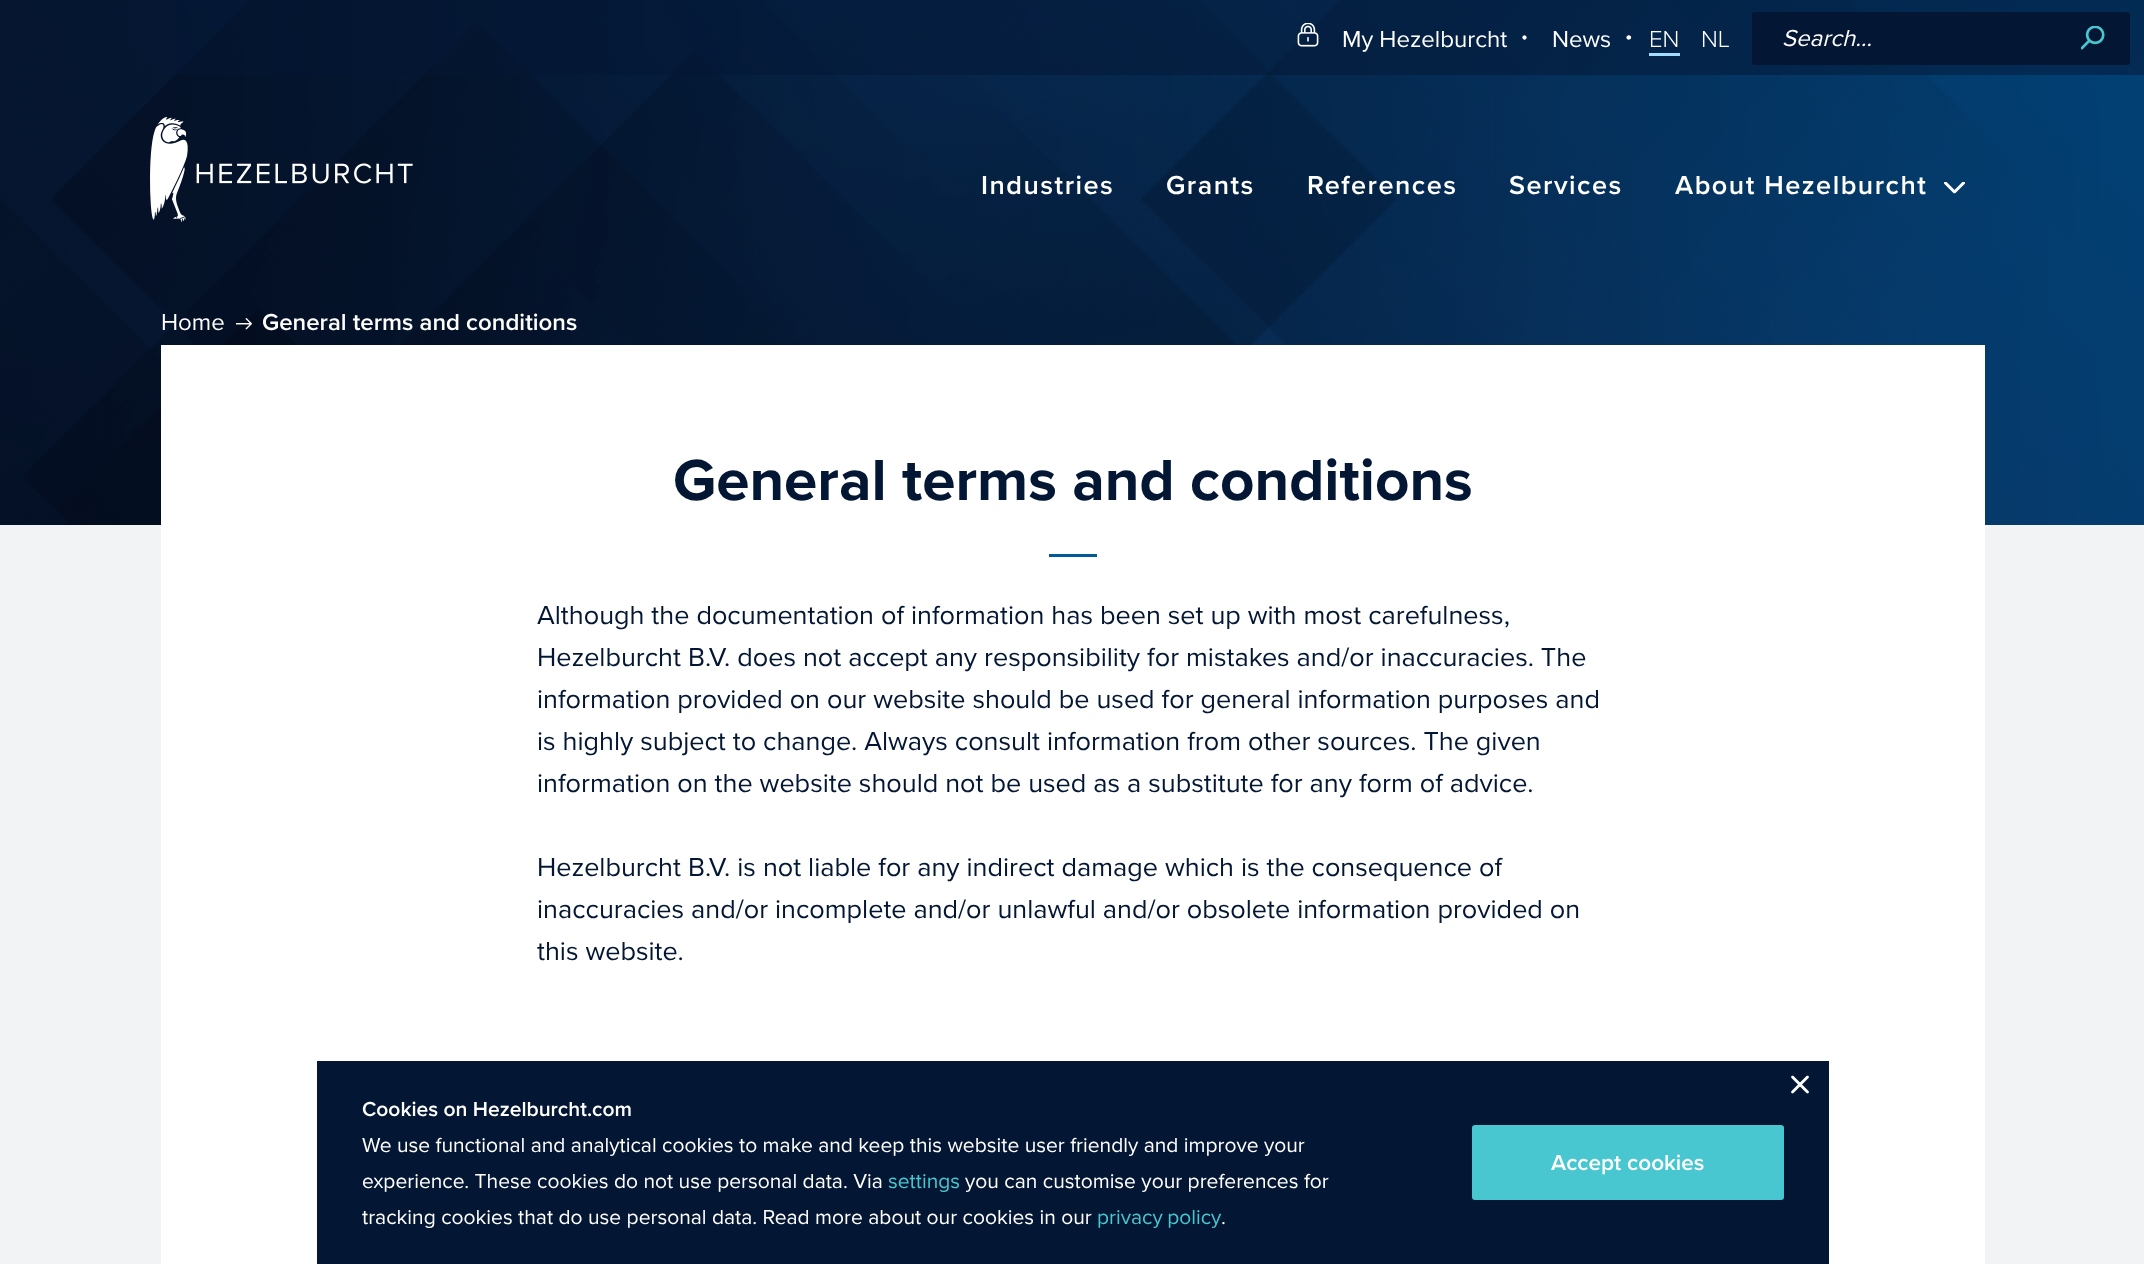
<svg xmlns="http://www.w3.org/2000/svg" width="2144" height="1264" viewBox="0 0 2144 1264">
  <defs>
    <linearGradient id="g1" gradientUnits="userSpaceOnUse" x1="220" y1="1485" x2="1925" y2="-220"><stop offset="0" stop-color="#283669"/><stop offset="1" stop-color="#015a9c"/></linearGradient>
    <linearGradient id="g2" gradientUnits="userSpaceOnUse" x1="1063" y1="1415" x2="1568" y2="910"><stop offset="0" stop-color="#42b3bc"/><stop offset="0.5" stop-color="#42b3bc"/><stop offset="0.51" stop-color="#49c7d1"/><stop offset="1" stop-color="#49c7d1"/></linearGradient>
  </defs>
  <rect width="100%" height="100%" fill="#f2f3f5"/>
  <rect x="0" y="0" width="2144" height="525" fill="url(#g1)"/>
  <image x="0" y="0" width="2144" height="525" href="img5.png"/>
  <rect x="175" y="0" width="1969" height="75" fill="#031633" fill-opacity="0.5"/>
  <image x="1297" y="23" width="22" height="24" href="img1.png"/>
  <text x="1342" y="47" font-family="'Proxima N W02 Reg'" font-size="24" fill="#ffffff">My Hezelburcht</text>
  <path d="M1526 36C1528 38 1525 41 1523 39C1521 37 1524 34 1526 36Z" fill="#ffffff"/>
  <text x="1552" y="47" font-family="'Proxima N W02 Reg'" font-size="24" fill="#ffffff">News</text>
  <path d="M1630.5 36C1632.5 38 1629.5 41 1627 39C1625 37 1628.5 34 1630.5 36Z" fill="#ffffff"/>
  <text x="1649" y="47" font-family="'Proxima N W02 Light'" font-size="24" font-weight="300" fill="#ffffff">EN</text>
  <rect x="1649" y="53" width="31" height="3" fill="#a0ddff"/>
  <text x="1701" y="47" font-family="'Proxima N W02 Light'" font-size="24" font-weight="300" fill="#ffffff">NL</text>
  <rect x="1752" y="12" width="378" height="53" rx="3" fill="#031633"/>
  <text x="1782" y="46" font-family="'Proxima N W02 Reg'" font-size="24" font-style="italic" fill="#ffffff">Search...</text>
  <image x="2081" y="26" width="24" height="24" href="img2.png"/>
  <image x="150" y="117" width="263" height="105" href="img3.png"/>
  <text x="981" y="194" font-family="'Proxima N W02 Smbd'" font-size="27" font-weight="600" letter-spacing="1.5" fill="#ffffff">Industries</text>
  <text x="1166" y="194" font-family="'Proxima N W02 Smbd'" font-size="27" font-weight="600" letter-spacing="1.5" fill="#ffffff">Grants</text>
  <text x="1307" y="194" font-family="'Proxima N W02 Smbd'" font-size="27" font-weight="600" letter-spacing="1.5" fill="#ffffff">References</text>
  <text x="1509" y="194" font-family="'Proxima N W02 Smbd'" font-size="27" font-weight="600" letter-spacing="1.5" fill="#ffffff">Services</text>
  <text x="1675" y="194" font-family="'Proxima N W02 Smbd'" font-size="27" font-weight="600" letter-spacing="1.5" fill="#ffffff">About Hezelburcht</text>
  <image x="1944" y="182" width="21" height="12" href="img4.png"/>
  <rect x="161" y="345" width="1824" height="919" fill="#ffffff"/>
  <text x="161" y="330" font-family="'Proxima N W02 Reg'" font-size="24" fill="#ffffff">Home</text>
  <image x="236" y="318" width="16" height="12" href="img6.png"/>
  <text x="262" y="330" font-family="'Proxima N W02 Smbd'" font-size="24" font-weight="600" fill="#ffffff">General terms and conditions</text>
  <text x="673" y="500" font-family="'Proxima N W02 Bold'" font-size="60" font-weight="bold" fill="#031633">General terms and conditions</text>
  <rect x="1049" y="554" width="48" height="3" fill="#015a9c"/>
  <text x="537" y="624" font-family="'Proxima N W02 Reg'" font-size="27" fill="#031633">Although the documentation of information has been set up with most carefulness,</text>
  <text x="537" y="666" font-family="'Proxima N W02 Reg'" font-size="27" fill="#031633">Hezelburcht B.V. does not accept any responsibility for mistakes and/or inaccuracies. The</text>
  <text x="537" y="708" font-family="'Proxima N W02 Reg'" font-size="27" fill="#031633">information provided on our website should be used for general information purposes and</text>
  <text x="537" y="750" font-family="'Proxima N W02 Reg'" font-size="27" fill="#031633">is highly subject to change. Always consult information from other sources. The given</text>
  <text x="537" y="792" font-family="'Proxima N W02 Reg'" font-size="27" fill="#031633">information on the website should not be used as a substitute for any form of advice.</text>
  <text x="537" y="876" font-family="'Proxima N W02 Reg'" font-size="27" fill="#031633">Hezelburcht B.V. is not liable for any indirect damage which is the consequence of</text>
  <text x="537" y="918" font-family="'Proxima N W02 Reg'" font-size="27" fill="#031633">inaccuracies and/or incomplete and/or unlawful and/or obsolete information provided on</text>
  <text x="537" y="960" font-family="'Proxima N W02 Reg'" font-size="27" fill="#031633">this website.</text>
  <rect x="317" y="1061" width="1512" height="203" fill="#031633"/>
  <path d="M1791.5 1076C1792 1075.5 1793 1075.5 1793.5 1076L1808.5 1091C1809 1091.5 1809 1092.5 1808.5 1093C1808 1093.5 1807 1093.5 1806.5 1093L1791.5 1078C1791 1077.5 1791 1076.5 1791.5 1076Z" fill="#ffffff"/>
  <path d="M1808.5 1076C1809 1076.5 1809 1077.5 1808.5 1078L1793.5 1093C1793 1093.5 1792 1093.5 1791.5 1093C1791 1092.5 1791 1091.5 1791.5 1091L1806.5 1076C1807 1075.5 1808 1075.5 1808.5 1076Z" fill="#ffffff"/>
  <text x="362" y="1116" font-family="'Proxima N W02 Smbd'" font-size="21" font-weight="600" fill="#ffffff">Cookies on Hezelburcht.com</text>
  <text x="362" y="1152" font-family="'Proxima N W02 Reg'" font-size="21" fill="#ffffff">We use functional and analytical cookies to make and keep this website user friendly and improve your</text>
  <text x="362" y="1188" font-family="'Proxima N W02 Reg'" font-size="21" fill="#ffffff">experience. These cookies do not use personal data. Via</text>
  <text x="888" y="1188" font-family="'Proxima N W02 Reg'" font-size="21" fill="#49c7d1">settings</text>
  <text x="965" y="1188" font-family="'Proxima N W02 Reg'" font-size="21" fill="#ffffff">you can customise your preferences for</text>
  <text x="362" y="1224" font-family="'Proxima N W02 Reg'" font-size="21" fill="#ffffff">tracking cookies that do use personal data. Read more about our cookies in our</text>
  <text x="1097" y="1224" word-spacing="-1" font-family="'Proxima N W02 Reg'" font-size="21" fill="#49c7d1">privacy policy</text>
  <text x="1221" y="1224" font-family="'Proxima N W02 Reg'" font-size="21" fill="#ffffff">.</text>
  <rect x="1472" y="1125" width="312" height="75" rx="3" fill="url(#g2)"/>
  <text x="1551" y="1170" font-family="'Proxima N W02 Smbd'" font-size="22.5" font-weight="600" fill="#ffffff">Accept cookies</text>
</svg>
